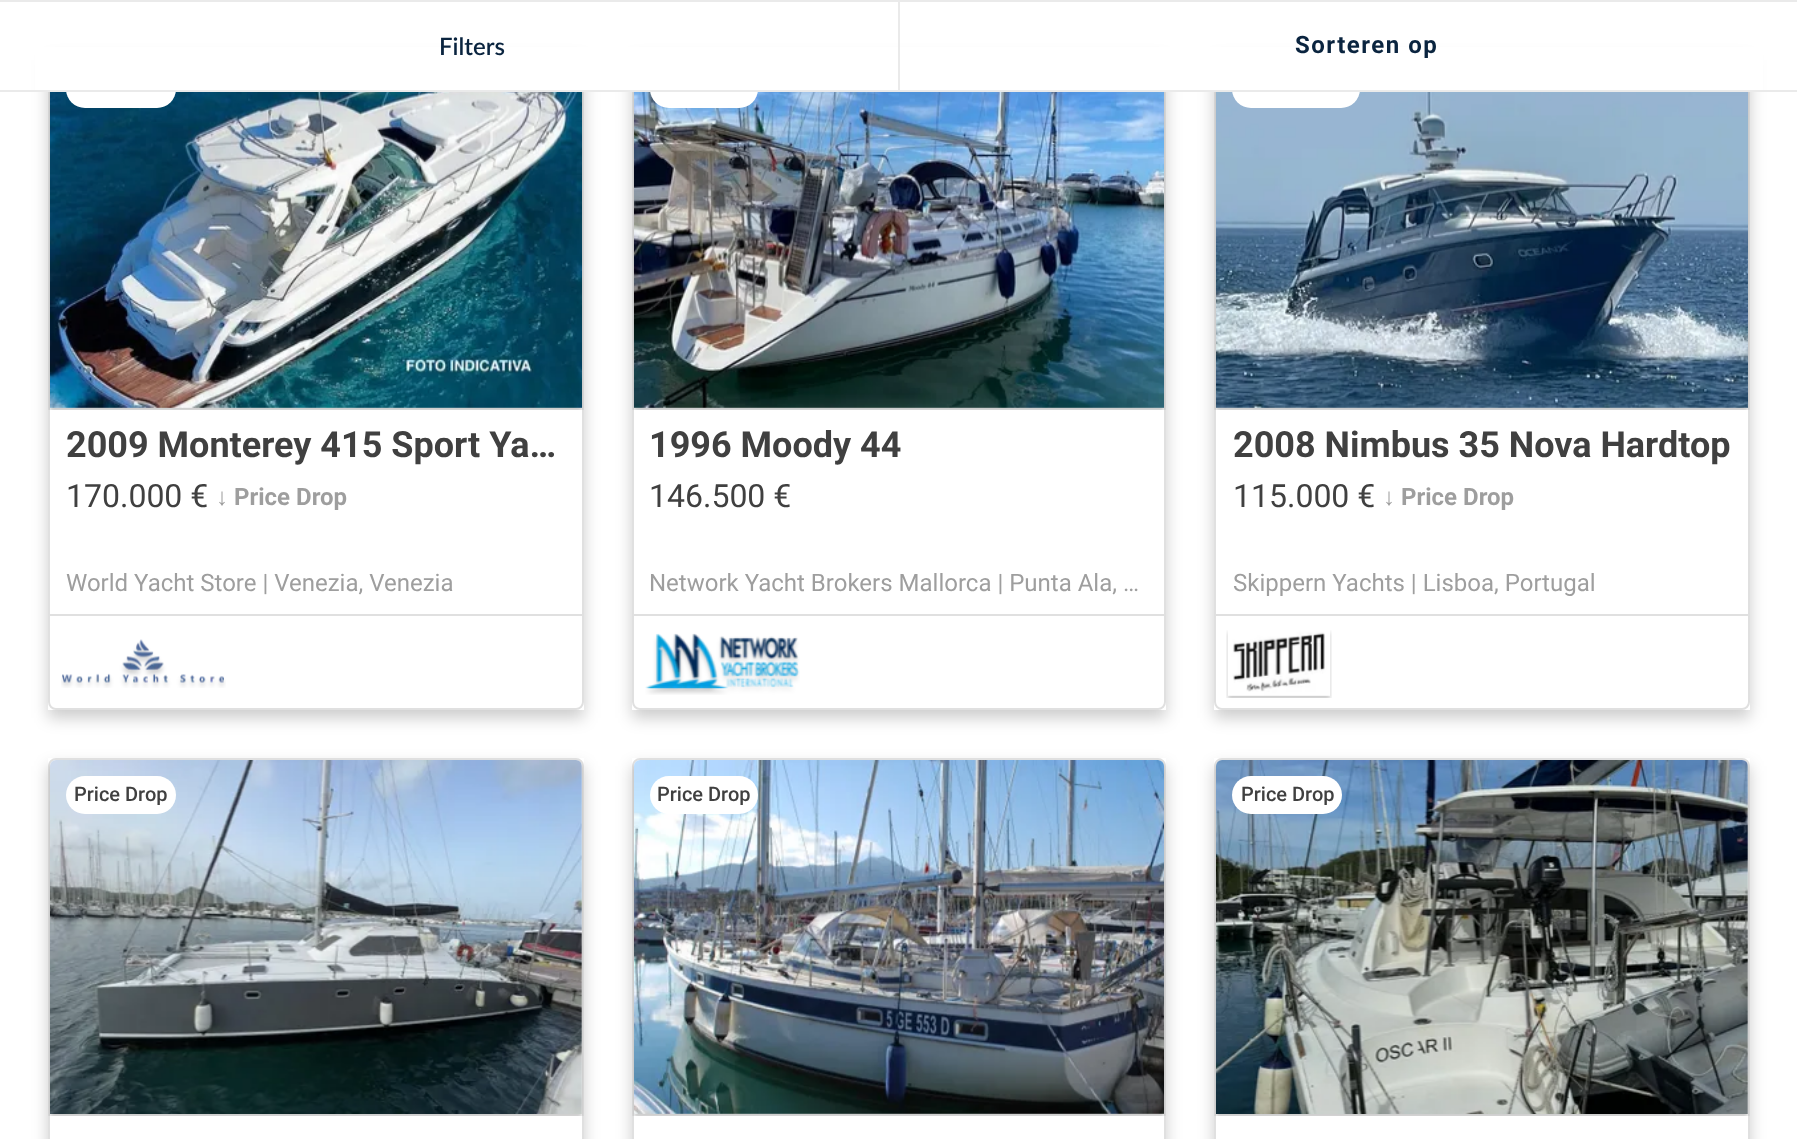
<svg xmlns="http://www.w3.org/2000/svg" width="1797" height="1139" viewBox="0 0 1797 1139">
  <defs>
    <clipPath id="clip1"><path d="M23 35H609V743H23ZM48 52H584V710H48Z" clip-rule="evenodd"/></clipPath>
    <filter id="blur1" x="-50%" y="-200%" width="200%" height="500%"><feGaussianBlur stdDeviation="8"/></filter>
    <clipPath id="clip2"><path d="M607 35H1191V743H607ZM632 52H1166V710H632Z" clip-rule="evenodd"/></clipPath>
    <clipPath id="clip3"><path d="M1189 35H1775V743H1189ZM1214 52H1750V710H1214Z" clip-rule="evenodd"/></clipPath>
    <clipPath id="clip4"><path d="M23 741H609V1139H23ZM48 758H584V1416H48Z" clip-rule="evenodd"/></clipPath>
    <clipPath id="clip5"><path d="M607 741H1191V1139H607ZM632 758H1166V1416H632Z" clip-rule="evenodd"/></clipPath>
    <clipPath id="clip6"><path d="M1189 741H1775V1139H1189ZM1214 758H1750V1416H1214Z" clip-rule="evenodd"/></clipPath>
  </defs>
  <rect width="100%" height="100%" fill="#ffffff"/>
  <g clip-path="url(#clip1)">
    <rect x="48" y="60" width="536" height="658" fill="#000000" fill-opacity="0.2" filter="url(#blur1)"/>
  </g>
  <rect x="49" y="53" width="534" height="656" rx="7" fill="none" stroke="#e0e0e0" stroke-width="2"/>
  <image x="48" y="92" width="536" height="318" href="img1.png"/>
  <rect x="66" y="70" width="110" height="38" rx="19" fill="#ffffff"/>
  <g clip-path="url(#clip2)">
    <rect x="632" y="60" width="534" height="658" fill="#000000" fill-opacity="0.2" filter="url(#blur1)"/>
  </g>
  <rect x="633" y="53" width="532" height="656" rx="7" fill="none" stroke="#e0e0e0" stroke-width="2"/>
  <image x="632" y="92" width="534" height="318" href="img3.png"/>
  <rect x="650" y="70" width="108" height="38" rx="19" fill="#ffffff"/>
  <g clip-path="url(#clip3)">
    <rect x="1214" y="60" width="536" height="658" fill="#000000" fill-opacity="0.2" filter="url(#blur1)"/>
  </g>
  <rect x="1215" y="53" width="534" height="656" rx="7" fill="none" stroke="#e0e0e0" stroke-width="2"/>
  <image x="1214" y="92" width="536" height="318" href="img5.png"/>
  <rect x="1232" y="70" width="128" height="38" rx="19" fill="#ffffff"/>
  <rect x="35" y="47" width="1728" height="43" fill="#ffffff"/>
  <rect x="0" y="0" width="1797" height="2" fill="#eaeaea"/>
  <rect x="0" y="90" width="1797" height="2" fill="#eaeaea"/>
  <rect x="898" y="2" width="2" height="88" fill="#eaeaea"/>
  <text x="439" y="55" font-family="Lato" font-size="24" font-weight="600" fill="#0a243f">Filters</text>
  <text x="1295" y="53" font-family="Roboto" font-size="24" font-weight="bold" letter-spacing="1.5" fill="#0a243f">Sorteren op</text>
  <text x="66" y="457" font-family="Roboto" font-size="36" font-weight="bold" fill="#404040">2009 Monterey 415 Sport Ya…</text>
  <text x="66" y="507" font-family="Roboto" font-size="32" fill="#404040">170.000 €</text>
  <text x="216" y="505" font-family="Liberation Sans" font-size="24" font-weight="bold" fill="#9e9e9e">↓</text>
  <text x="234" y="505" font-family="Roboto" font-size="24" font-weight="bold" fill="#9e9e9e">Price Drop</text>
  <text x="66" y="591" font-family="Roboto" font-size="24" fill="#9e9e9e">World Yacht Store | Venezia, Venezia</text>
  <rect x="50" y="614" width="532" height="2" fill="#e0e0e0"/>
  <image x="61" y="639" width="165" height="49" href="img2.png"/>
  <text x="649" y="457" font-family="Roboto" font-size="36" font-weight="bold" fill="#404040">1996 Moody 44</text>
  <text x="649" y="507" font-family="Roboto" font-size="32" fill="#404040">146.500 €</text>
  <text x="649" y="591" font-family="Roboto" font-size="24" fill="#9e9e9e">Network Yacht Brokers Mallorca | Punta Ala, …</text>
  <rect x="634" y="614" width="530" height="2" fill="#e0e0e0"/>
  <image x="645" y="633" width="155" height="62" href="img4.png"/>
  <text x="1233" y="457" font-family="Roboto" font-size="36" font-weight="bold" fill="#404040">2008 Nimbus 35 Nova Hardtop</text>
  <text x="1233" y="507" font-family="Roboto" font-size="32" fill="#404040">115.000 €</text>
  <text x="1383" y="505" font-family="Liberation Sans" font-size="24" font-weight="bold" fill="#9e9e9e">↓</text>
  <text x="1401" y="505" font-family="Roboto" font-size="24" font-weight="bold" fill="#9e9e9e">Price Drop</text>
  <text x="1233" y="591" font-family="Roboto" font-size="24" fill="#9e9e9e">Skippern Yachts | Lisboa, Portugal</text>
  <rect x="1216" y="614" width="532" height="2" fill="#e0e0e0"/>
  <image x="1226" y="630" width="106" height="68" href="img6.png"/>
  <g clip-path="url(#clip4)">
    <rect x="48" y="766" width="536" height="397" fill="#000000" fill-opacity="0.2" filter="url(#blur1)"/>
  </g>
  <rect x="49" y="759" width="534" height="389" rx="7" fill="none" stroke="#e0e0e0" stroke-width="2"/>
  <image x="48" y="760" width="536" height="356" href="img7.png"/>
  <rect x="66" y="776" width="110" height="38" rx="19" fill="#ffffff"/>
  <text x="74" y="801" font-family="Roboto" font-size="20" font-weight="500" fill="#404040">Price Drop</text>
  <g clip-path="url(#clip5)">
    <rect x="632" y="766" width="534" height="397" fill="#000000" fill-opacity="0.2" filter="url(#blur1)"/>
  </g>
  <rect x="633" y="759" width="532" height="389" rx="7" fill="none" stroke="#e0e0e0" stroke-width="2"/>
  <image x="632" y="760" width="534" height="356" href="img8.png"/>
  <rect x="650" y="776" width="108" height="38" rx="19" fill="#ffffff"/>
  <text x="657" y="801" font-family="Roboto" font-size="20" font-weight="500" fill="#404040">Price Drop</text>
  <g clip-path="url(#clip6)">
    <rect x="1214" y="766" width="536" height="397" fill="#000000" fill-opacity="0.2" filter="url(#blur1)"/>
  </g>
  <rect x="1215" y="759" width="534" height="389" rx="7" fill="none" stroke="#e0e0e0" stroke-width="2"/>
  <image x="1214" y="760" width="536" height="356" href="img9.png"/>
  <rect x="1232" y="776" width="110" height="38" rx="19" fill="#ffffff"/>
  <text x="1241" y="801" font-family="Roboto" font-size="20" font-weight="500" fill="#404040">Price Drop</text>
</svg>
